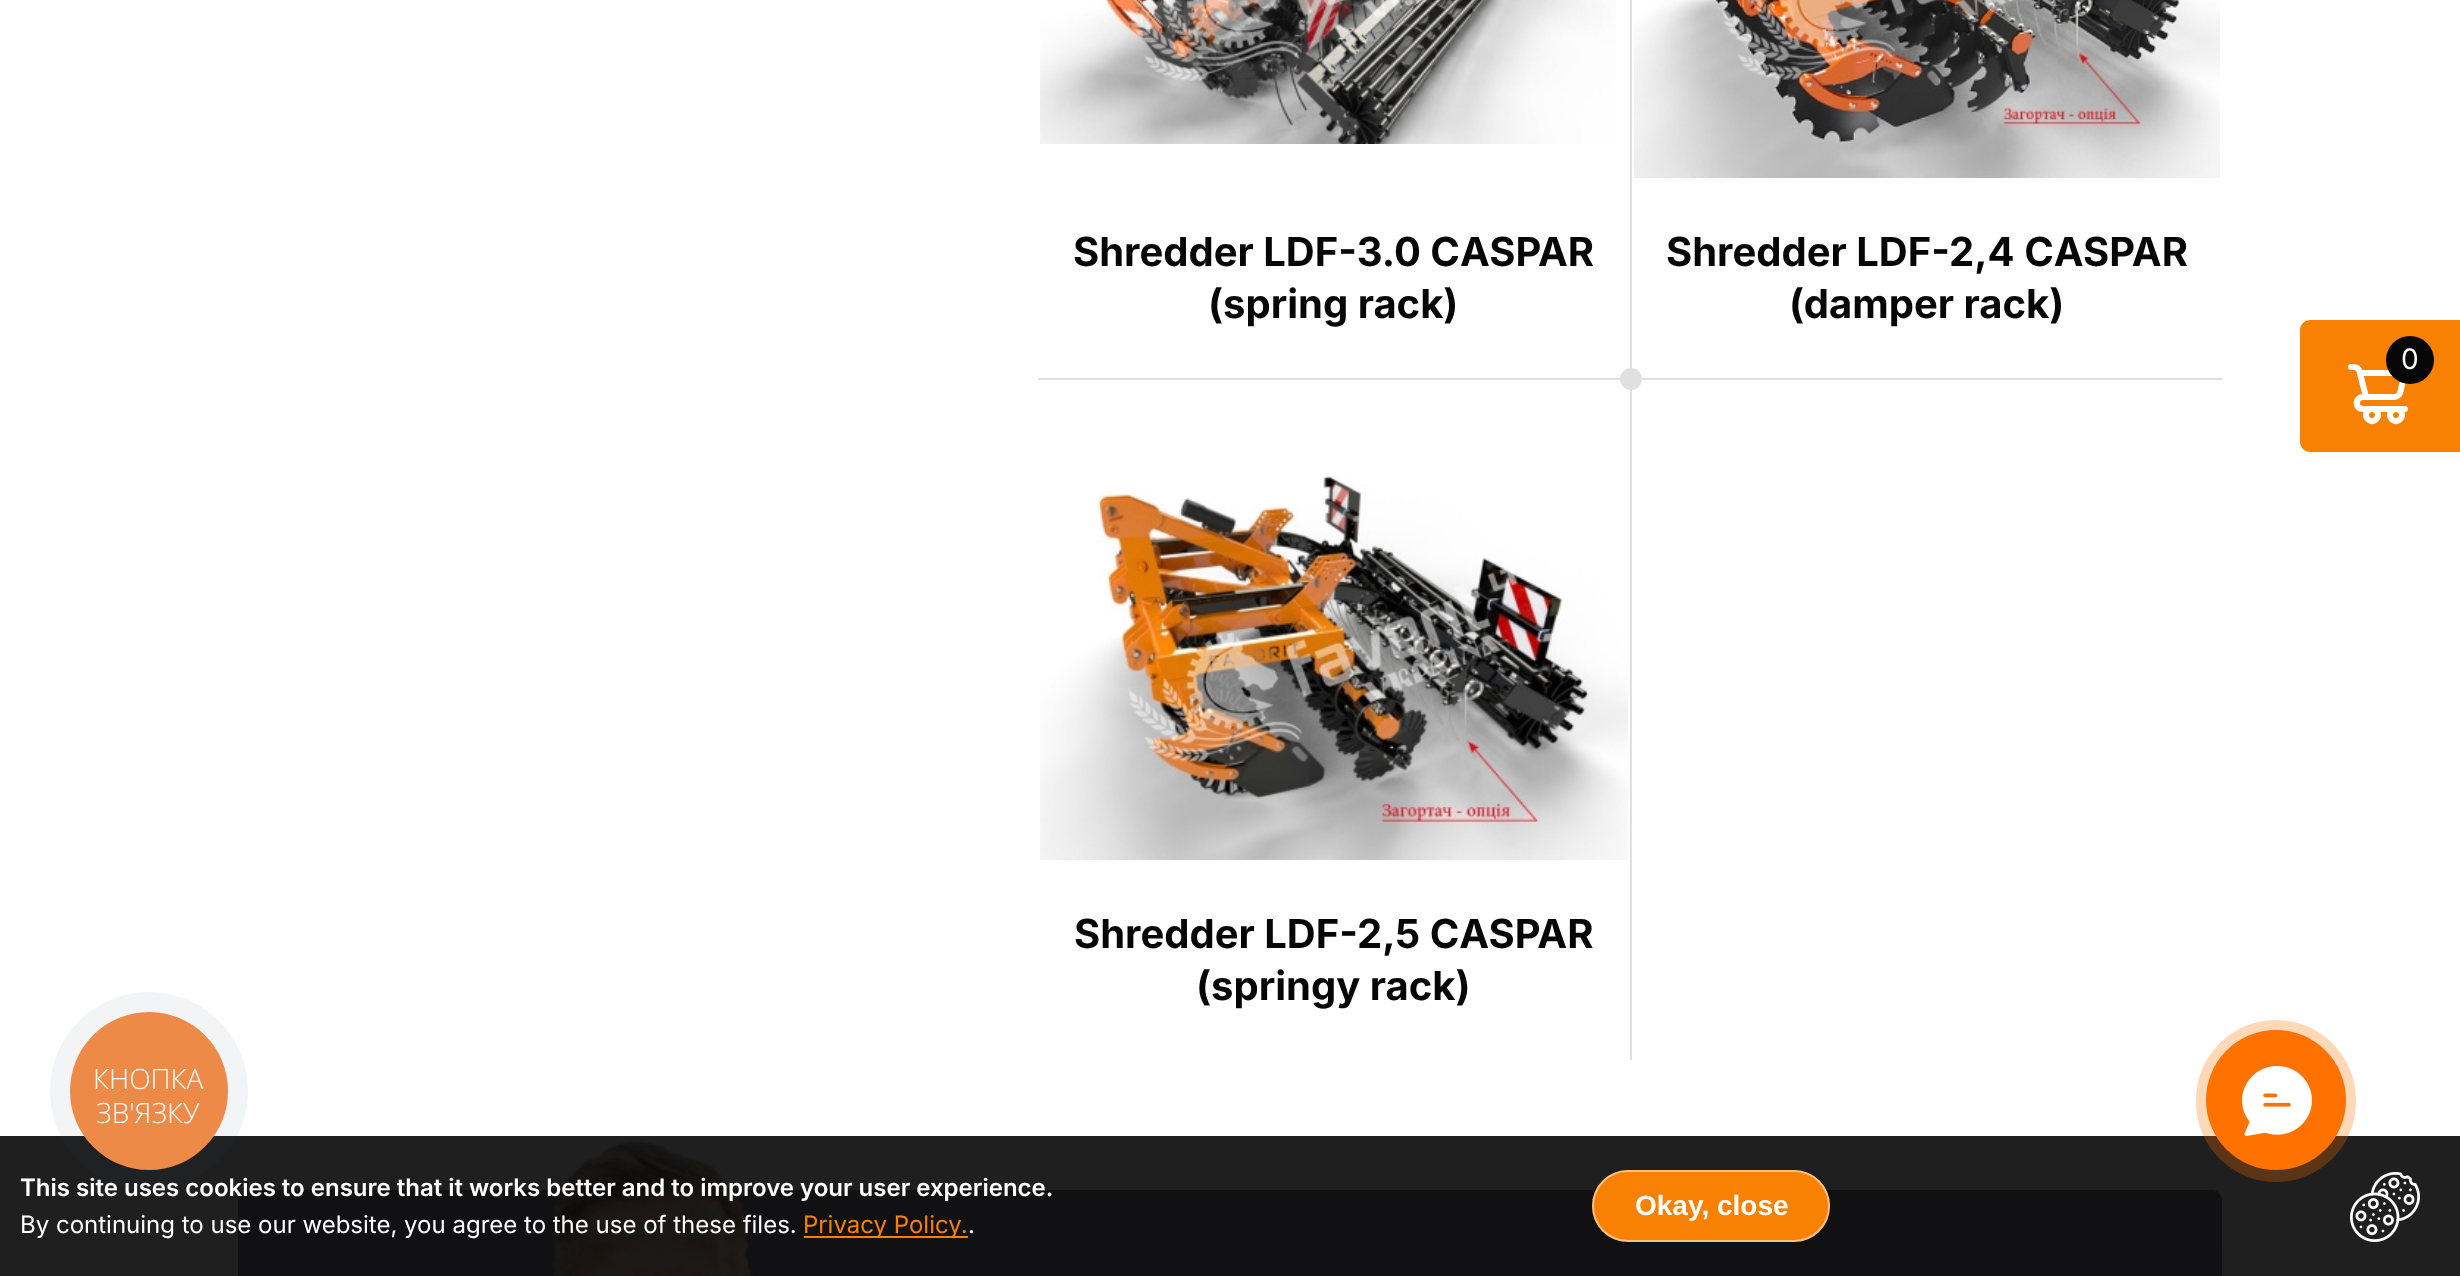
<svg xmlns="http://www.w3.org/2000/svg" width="2460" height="1276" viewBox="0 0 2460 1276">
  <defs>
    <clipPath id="clip1"><rect x="1038" y="0" width="1184" height="1060"/></clipPath>
    <linearGradient id="g1" gradientUnits="userSpaceOnUse" x1="1230" y1="1190" x2="1230" y2="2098"><stop offset="0" stop-color="#111113"/><stop offset="1" stop-color="#0b0b0c"/></linearGradient>
  </defs>
  <rect width="100%" height="100%" fill="#ffffff"/>
  <rect x="0" y="1136" width="2460" height="140" fill="#1f1f1f"/>
  <image x="1040" y="0" width="576" height="144" href="img1.png"/>
  <text x="1073" y="266" font-family="Inter" font-size="40" font-weight="bold" fill="#060606">Shredder LDF-3.0 СASPAR</text>
  <text x="1208" y="318" font-family="Inter" font-size="40" font-weight="bold" fill="#060606">(spring rack)</text>
  <g clip-path="url(#clip1)">
    <rect x="1631" y="-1" width="592" height="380" fill="none" stroke="#e0e0e0" stroke-width="2"/>
  </g>
  <image x="1634" y="0" width="586" height="178" href="img2.png"/>
  <text x="1666" y="266" font-family="Inter" font-size="40" font-weight="bold" fill="#060606">Shredder LDF-2,4 СASPAR</text>
  <text x="1789" y="318" font-family="Inter" font-size="40" font-weight="bold" fill="#060606">(damper rack)</text>
  <circle cx="1631" cy="379" r="11" fill="#e0e0e0"/>
  <g clip-path="url(#clip1)">
    <rect x="1037" y="379" width="594" height="682" fill="none" stroke="#e0e0e0" stroke-width="2"/>
  </g>
  <image x="1040" y="475" width="588" height="385" href="img3.png"/>
  <text x="1074" y="948" font-family="Inter" font-size="40" font-weight="bold" fill="#060606">Shredder LDF-2,5 СASPAR</text>
  <text x="1196" y="1000" font-family="Inter" font-size="40" font-weight="bold" fill="#060606">(springy rack)</text>
  <rect x="238" y="1190" width="1984" height="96" rx="10" fill="url(#g1)"/>
  <image x="552" y="1140" width="201" height="136" href="img4.png"/>
  <text x="20" y="1196" font-family="Inter" font-size="24" font-weight="600" fill="#ffffff">This site uses cookies to ensure that it works better and to improve your user experience.</text>
  <text x="20" y="1233" font-family="Inter" font-size="24" fill="#ffffff">By continuing to use our website, you agree to the use of these files.</text>
  <rect x="804" y="1236" width="164" height="2" fill="#f88103"/>
  <text x="803" y="1233" font-family="Inter" font-size="24" fill="#f88103">Privacy Policy.</text>
  <text x="968" y="1233" font-family="Inter" font-size="24" fill="#ffffff">.</text>
  <rect x="1592" y="1170" width="238" height="72" rx="36" fill="#f88103"/>
  <rect x="1593" y="1171" width="236" height="70" rx="35" fill="none" stroke="#ffffff" stroke-opacity="0.5" stroke-width="2"/>
  <text x="1635" y="1215" font-family="Liberation Sans" font-size="28" font-weight="bold" fill="#ffffff">Okay, close</text>
  <image x="2350" y="1172" width="70" height="70" href="img5.png"/>
  <path d="M2310 320H2460V452H2310C2304.5 452 2300 447.5 2300 442V330C2300 324.5 2304.5 320 2310 320Z" fill="#f88103"/>
  <image x="2348" y="364" width="60" height="61" href="img6.png"/>
  <circle cx="2410" cy="360" r="24" fill="#060606"/>
  <text x="2401" y="369" font-family="Inter" font-size="28" fill="#ffffff">0</text>
  <circle cx="149" cy="1091" r="99" fill="#2a405d" fill-opacity="0.06"/>
  <circle cx="149" cy="1091" r="79" fill="#ed8a47"/>
  <text x="93" y="1089" font-family="Open Sans" font-size="28" font-weight="300" fill="#ffffff">КНОПКА</text>
  <text x="96" y="1123" font-family="Open Sans" font-size="28" font-weight="300" fill="#ffffff">ЗВ'ЯЗКУ</text>
  <circle cx="2276" cy="1100" r="70" fill="#ff7200"/>
  <rect x="2196" y="1020" width="160" height="162" rx="80" fill="#ff7200" fill-opacity="0.15"/>
  <rect x="2196" y="1020" width="160" height="162" rx="80" fill="#ff7200" fill-opacity="0.15"/>
  <image x="2242" y="1066" width="70" height="70" href="img7.png"/>
</svg>
